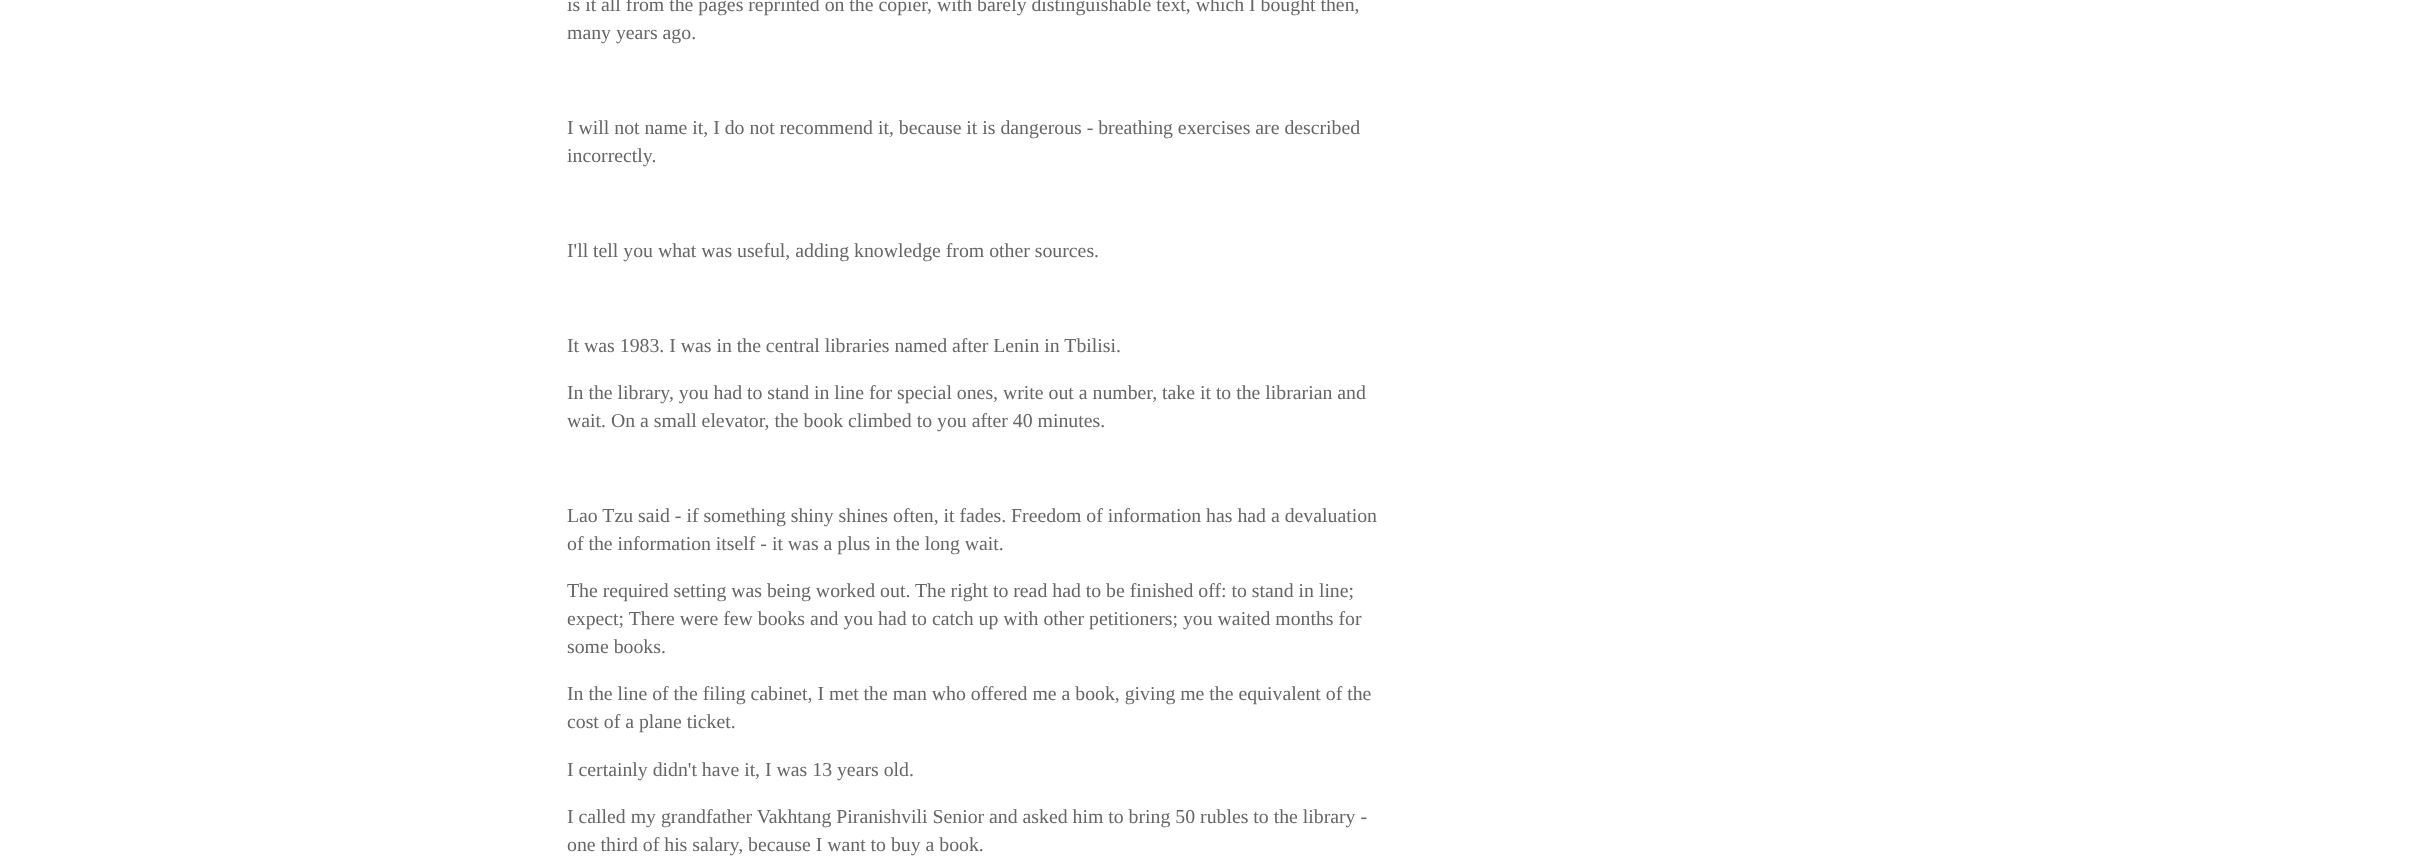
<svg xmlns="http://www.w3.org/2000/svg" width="2417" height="858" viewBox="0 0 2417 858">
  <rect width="100%" height="100%" fill="#ffffff"/>
  <text x="567" y="11" font-family="Liberation Serif" font-size="19.8" fill="#666666">is it all from the pages reprinted on the copier, with barely distinguishable text, which I bought then,</text>
  <text x="567" y="39" font-family="Liberation Serif" font-size="19.8" fill="#666666">many years ago.</text>
  <text x="567" y="134" font-family="Liberation Serif" font-size="19.8" fill="#666666">I will not name it, I do not recommend it, because it is dangerous - breathing exercises are described</text>
  <text x="567" y="162" font-family="Liberation Serif" font-size="19.8" fill="#666666">incorrectly.</text>
  <text x="567" y="257" font-family="Liberation Serif" font-size="19.8" fill="#666666">I'll tell you what was useful, adding knowledge from other sources.</text>
  <text x="567" y="352" font-family="Liberation Serif" font-size="19.8" fill="#666666">It was 1983. I was in the central libraries named after Lenin in Tbilisi.</text>
  <text x="567" y="399" font-family="Liberation Serif" font-size="19.8" fill="#666666">In the library, you had to stand in line for special ones, write out a number, take it to the librarian and</text>
  <text x="567" y="427" font-family="Liberation Serif" font-size="19.8" fill="#666666">wait. On a small elevator, the book climbed to you after 40 minutes.</text>
  <text x="567" y="522" font-family="Liberation Serif" font-size="19.8" fill="#666666">Lao Tzu said - if something shiny shines often, it fades. Freedom of information has had a devaluation</text>
  <text x="567" y="550" font-family="Liberation Serif" font-size="19.8" fill="#666666">of the information itself - it was a plus in the long wait.</text>
  <text x="567" y="597" font-family="Liberation Serif" font-size="19.8" fill="#666666">The required setting was being worked out. The right to read had to be finished off: to stand in line;</text>
  <text x="567" y="625" font-family="Liberation Serif" font-size="19.8" fill="#666666">expect; There were few books and you had to catch up with other petitioners; you waited months for</text>
  <text x="567" y="653" font-family="Liberation Serif" font-size="19.8" fill="#666666">some books.</text>
  <text x="567" y="700" font-family="Liberation Serif" font-size="19.8" fill="#666666">In the line of the filing cabinet, I met the man who offered me a book, giving me the equivalent of the</text>
  <text x="567" y="728" font-family="Liberation Serif" font-size="19.8" fill="#666666">cost of a plane ticket.</text>
  <text x="567" y="776" font-family="Liberation Serif" font-size="19.8" fill="#666666">I certainly didn't have it, I was 13 years old.</text>
  <text x="567" y="823" font-family="Liberation Serif" font-size="19.8" fill="#666666">I called my grandfather Vakhtang Piranishvili Senior and asked him to bring 50 rubles to the library -</text>
  <text x="567" y="851" font-family="Liberation Serif" font-size="19.8" fill="#666666">one third of his salary, because I want to buy a book.</text>
</svg>
